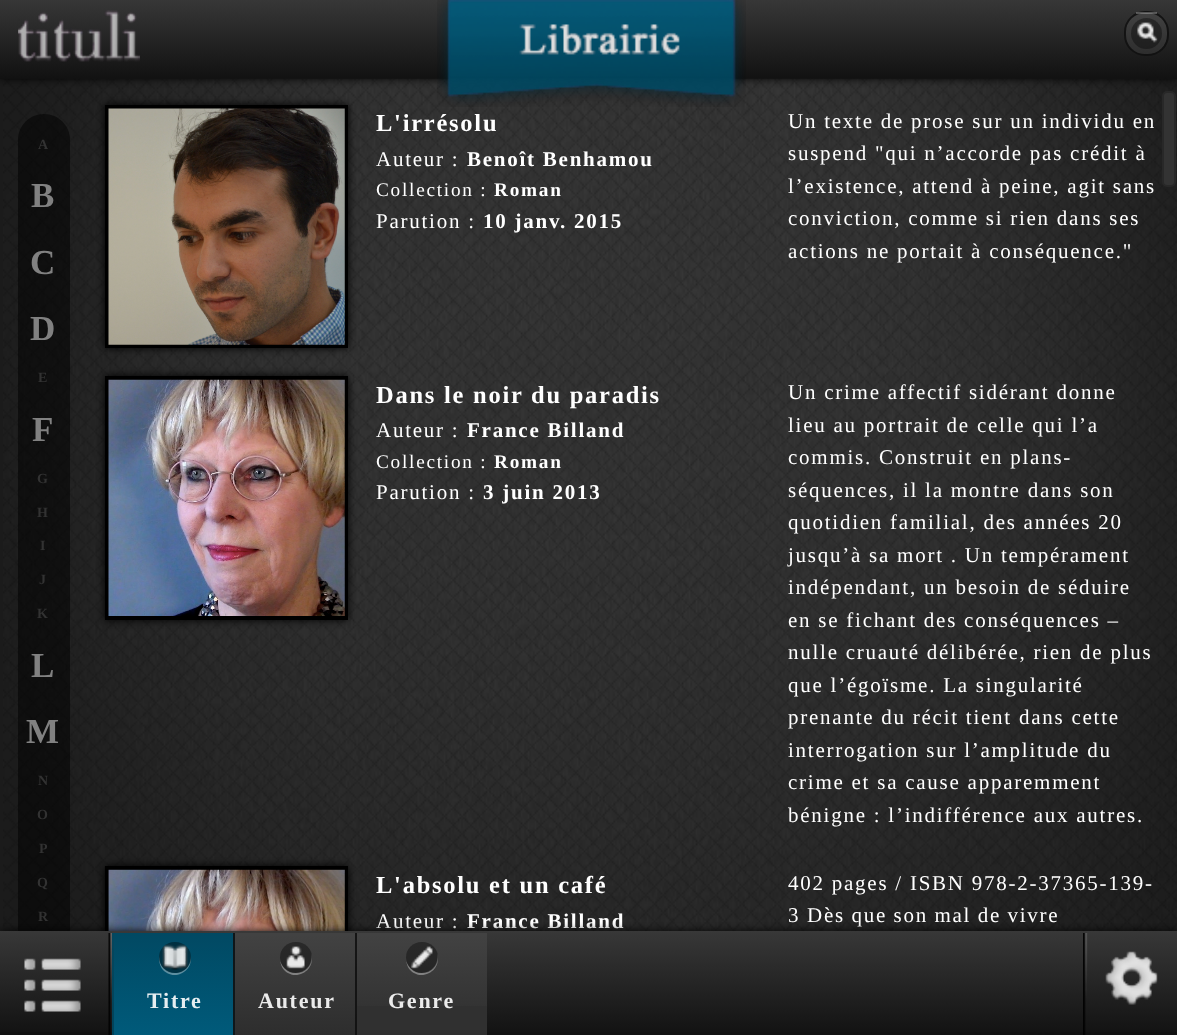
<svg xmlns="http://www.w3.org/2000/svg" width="1177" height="1035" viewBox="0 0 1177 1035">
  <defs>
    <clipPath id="clip1"><path d="M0 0H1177V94H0ZM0-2H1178V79H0Z" clip-rule="evenodd"/></clipPath>
    <filter id="blur1" x="-50%" y="-200%" width="200%" height="500%"><feGaussianBlur stdDeviation="4.5"/></filter>
    <linearGradient id="g1" gradientUnits="userSpaceOnUse" x1="589" y1="-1.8" x2="589" y2="79"><stop offset="0" stop-color="#3c3c3c" stop-opacity="0.9"/><stop offset="1" stop-color="#111111" stop-opacity="0.9"/></linearGradient>
    <linearGradient id="g2" gradientUnits="userSpaceOnUse" x1="1146" y1="12" x2="1146" y2="54"><stop offset="0" stop-color="#444444" stop-opacity="0.9"/><stop offset="1" stop-color="#2d2d2d" stop-opacity="0.9"/></linearGradient>
    <clipPath id="clip2"><rect x="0" y="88" width="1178" height="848"/></clipPath>
    <clipPath id="clip3"><rect x="0" y="88" width="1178" height="848"/></clipPath>
    <clipPath id="clip4"><rect x="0" y="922" width="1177" height="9"/></clipPath>
    <linearGradient id="g3" gradientUnits="userSpaceOnUse" x1="589" y1="931" x2="589" y2="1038"><stop offset="0" stop-color="#3c3c3c" stop-opacity="0.9"/><stop offset="1" stop-color="#111111" stop-opacity="0.9"/></linearGradient>
    <linearGradient id="g4" gradientUnits="userSpaceOnUse" x1="175" y1="933" x2="175" y2="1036"><stop offset="0" stop-color="#004963" stop-opacity="0.9"/><stop offset="1" stop-color="#005d7e" stop-opacity="0.9"/></linearGradient>
    <linearGradient id="g5" gradientUnits="userSpaceOnUse" x1="296" y1="933" x2="296" y2="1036"><stop offset="0" stop-color="#444444" stop-opacity="0.9"/><stop offset="1" stop-color="#2d2d2d" stop-opacity="0.9"/></linearGradient>
    <linearGradient id="g6" gradientUnits="userSpaceOnUse" x1="422" y1="933" x2="422" y2="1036"><stop offset="0" stop-color="#444444" stop-opacity="0.9"/><stop offset="1" stop-color="#2d2d2d" stop-opacity="0.9"/></linearGradient>
  </defs>
  <rect width="100%" height="100%" fill="#1b1b1b"/>
  <image x="3" y="0" width="1174" height="1035" href="img1.png"/>
  <rect x="1163" y="92" width="12" height="94" rx="4" fill="#333333" stroke="#282828" stroke-width="2"/>
  <g clip-path="url(#clip1)">
    <rect x="0" y="-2" width="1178" height="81" fill="#000000" fill-opacity="0.9" filter="url(#blur1)"/>
  </g>
  <rect x="0" y="0" width="1177" height="79" fill="#111111" fill-opacity="0.9"/>
  <rect x="0" y="0" width="1177" height="78" fill="url(#g1)"/>
  <image x="18" y="10" width="122" height="52" href="img2.png"/>
  <image x="437" y="0" width="309" height="107" href="img3.png"/>
  <rect x="1125" y="12" width="42" height="42" rx="19" fill="#333333" fill-opacity="0.9"/>
  <rect x="1125" y="12" width="42" height="42" rx="19" fill="url(#g2)"/>
  <rect x="1125" y="12" width="43" height="43" rx="20" fill="none" stroke="#111111" stroke-opacity="0.9" stroke-width="2"/>
  <rect x="1136" y="12" width="21" height="2" fill="#ffffff" fill-opacity="0.27"/>
  <circle cx="1146.5" cy="33.5" r="15.5" fill="#000000" fill-opacity="0.36"/>
  <image x="1137" y="22" width="21" height="21" href="img4.png"/>
  <path d="M44 114C58.5 114 70 125.5 70 140V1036H18V140C18 125.5 29.5 114 44 114Z" fill="#000000" fill-opacity="0.5"/>
  <text x="38" y="149" font-family="Liberation Serif" font-size="14" font-weight="bold" letter-spacing="1.75" fill="#323232">A</text>
  <text x="31" y="207" font-family="Liberation Serif" font-size="35" font-weight="bold" letter-spacing="1.75" fill="#818181">B</text>
  <text x="30" y="274" font-family="Liberation Serif" font-size="35" font-weight="bold" letter-spacing="1.75" fill="#818181">C</text>
  <text x="30" y="340" font-family="Liberation Serif" font-size="35" font-weight="bold" letter-spacing="1.75" fill="#818181">D</text>
  <text x="38" y="382" font-family="Liberation Serif" font-size="14" font-weight="bold" letter-spacing="1.75" fill="#323232">E</text>
  <text x="32" y="441" font-family="Liberation Serif" font-size="35" font-weight="bold" letter-spacing="1.75" fill="#818181">F</text>
  <text x="37" y="483" font-family="Liberation Serif" font-size="14" font-weight="bold" letter-spacing="1.75" fill="#323232">G</text>
  <text x="37" y="517" font-family="Liberation Serif" font-size="14" font-weight="bold" letter-spacing="1.75" fill="#323232">H</text>
  <text x="40" y="550" font-family="Liberation Serif" font-size="14" font-weight="bold" letter-spacing="1.75" fill="#323232">I</text>
  <text x="39" y="584" font-family="Liberation Serif" font-size="14" font-weight="bold" letter-spacing="1.75" fill="#323232">J</text>
  <text x="37" y="618" font-family="Liberation Serif" font-size="14" font-weight="bold" letter-spacing="1.75" fill="#323232">K</text>
  <text x="31" y="677" font-family="Liberation Serif" font-size="35" font-weight="bold" letter-spacing="1.75" fill="#818181">L</text>
  <text x="26" y="743" font-family="Liberation Serif" font-size="35" font-weight="bold" letter-spacing="1.75" fill="#818181">M</text>
  <text x="38" y="785" font-family="Liberation Serif" font-size="14" font-weight="bold" letter-spacing="1.75" fill="#323232">N</text>
  <text x="37" y="819" font-family="Liberation Serif" font-size="14" font-weight="bold" letter-spacing="1.75" fill="#323232">O</text>
  <text x="39" y="853" font-family="Liberation Serif" font-size="14" font-weight="bold" letter-spacing="1.75" fill="#323232">P</text>
  <text x="37" y="887" font-family="Liberation Serif" font-size="14" font-weight="bold" letter-spacing="1.75" fill="#323232">Q</text>
  <text x="38" y="921" font-family="Liberation Serif" font-size="14" font-weight="bold" letter-spacing="1.75" fill="#323232">R</text>
  <rect x="105" y="105" width="243" height="243" fill="#000000" filter="url(#blur1)"/>
  <rect x="107" y="107" width="239" height="239" fill="none" stroke="#000000" stroke-width="4"/>
  <image x="108" y="108" width="237" height="237" href="img5.png"/>
  <text x="376" y="131" font-family="Liberation Serif" font-size="24.5" font-weight="bold" letter-spacing="1.75" fill="#ffffff">L'irrésolu</text>
  <text x="376" y="166" font-family="Liberation Serif" font-size="21" letter-spacing="1.75" fill="#ffffff">Auteur :</text>
  <text x="467" y="166" font-family="Liberation Serif" font-size="21" font-weight="bold" letter-spacing="1.75" fill="#ffffff">Benoît Benhamou</text>
  <text x="376" y="196" font-family="Liberation Serif" font-size="19.25" letter-spacing="1.75" fill="#ffffff">Collection :</text>
  <text x="494" y="196" font-family="Liberation Serif" font-size="19.25" font-weight="bold" letter-spacing="1.75" fill="#ffffff">Roman</text>
  <text x="376" y="228" font-family="Liberation Serif" font-size="21" letter-spacing="1.75" fill="#ffffff">Parution :</text>
  <text x="483" y="228" font-family="Liberation Serif" font-size="21" font-weight="bold" letter-spacing="1.75" fill="#ffffff">10 janv. 2015</text>
  <text x="788" y="128" font-family="Liberation Serif" font-size="21" letter-spacing="1.75" fill="#ffffff">Un texte de prose sur un individu en</text>
  <text x="788" y="160" font-family="Liberation Serif" font-size="21" letter-spacing="1.75" fill="#ffffff">suspend "qui n’accorde pas crédit à</text>
  <text x="788" y="193" font-family="Liberation Serif" font-size="21" letter-spacing="1.75" fill="#ffffff">l’existence, attend à peine, agit sans</text>
  <text x="788" y="225" font-family="Liberation Serif" font-size="21" letter-spacing="1.75" fill="#ffffff">conviction, comme si rien dans ses</text>
  <text x="788" y="258" font-family="Liberation Serif" font-size="21" letter-spacing="1.75" fill="#ffffff">actions ne portait à conséquence."</text>
  <rect x="105" y="376" width="243" height="244" fill="#000000" filter="url(#blur1)"/>
  <rect x="107" y="378" width="239" height="240" fill="none" stroke="#000000" stroke-width="4"/>
  <image x="108" y="379" width="237" height="237" href="img6.png"/>
  <text x="376" y="403" font-family="Liberation Serif" font-size="24.5" font-weight="bold" letter-spacing="1.75" fill="#ffffff">Dans le noir du paradis</text>
  <text x="376" y="437" font-family="Liberation Serif" font-size="21" letter-spacing="1.75" fill="#ffffff">Auteur :</text>
  <text x="467" y="437" font-family="Liberation Serif" font-size="21" font-weight="bold" letter-spacing="1.75" fill="#ffffff">France Billand</text>
  <text x="376" y="468" font-family="Liberation Serif" font-size="19.25" letter-spacing="1.75" fill="#ffffff">Collection :</text>
  <text x="494" y="468" font-family="Liberation Serif" font-size="19.25" font-weight="bold" letter-spacing="1.75" fill="#ffffff">Roman</text>
  <text x="376" y="499" font-family="Liberation Serif" font-size="21" letter-spacing="1.75" fill="#ffffff">Parution :</text>
  <text x="483" y="499" font-family="Liberation Serif" font-size="21" font-weight="bold" letter-spacing="1.75" fill="#ffffff">3 juin 2013</text>
  <text x="788" y="399" font-family="Liberation Serif" font-size="21" letter-spacing="1.75" fill="#ffffff">Un crime affectif sidérant donne</text>
  <text x="788" y="432" font-family="Liberation Serif" font-size="21" letter-spacing="1.75" fill="#ffffff">lieu au portrait de celle qui l’a</text>
  <text x="788" y="464" font-family="Liberation Serif" font-size="21" letter-spacing="1.75" fill="#ffffff">commis. Construit en plans-</text>
  <text x="788" y="497" font-family="Liberation Serif" font-size="21" letter-spacing="1.75" fill="#ffffff">séquences, il la montre dans son</text>
  <text x="788" y="529" font-family="Liberation Serif" font-size="21" letter-spacing="1.75" fill="#ffffff">quotidien familial, des années 20</text>
  <text x="788" y="562" font-family="Liberation Serif" font-size="21" letter-spacing="1.75" fill="#ffffff">jusqu’à sa mort . Un tempérament</text>
  <text x="788" y="594" font-family="Liberation Serif" font-size="21" letter-spacing="1.75" fill="#ffffff">indépendant, un besoin de séduire</text>
  <text x="788" y="627" font-family="Liberation Serif" font-size="21" letter-spacing="1.75" fill="#ffffff">en se fichant des conséquences –</text>
  <text x="788" y="659" font-family="Liberation Serif" font-size="21" letter-spacing="1.75" fill="#ffffff">nulle cruauté délibérée, rien de plus</text>
  <text x="788" y="692" font-family="Liberation Serif" font-size="21" letter-spacing="1.75" fill="#ffffff">que l’égoïsme. La singularité</text>
  <text x="788" y="724" font-family="Liberation Serif" font-size="21" letter-spacing="1.75" fill="#ffffff">prenante du récit tient dans cette</text>
  <text x="788" y="757" font-family="Liberation Serif" font-size="21" letter-spacing="1.75" fill="#ffffff">interrogation sur l’amplitude du</text>
  <text x="788" y="789" font-family="Liberation Serif" font-size="21" letter-spacing="1.75" fill="#ffffff">crime et sa cause apparemment</text>
  <text x="788" y="822" font-family="Liberation Serif" font-size="21" letter-spacing="1.75" fill="#ffffff">bénigne : l’indifférence aux autres.</text>
  <g clip-path="url(#clip2)">
    <rect x="105" y="866" width="243" height="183" fill="#000000" filter="url(#blur1)"/>
  </g>
  <g clip-path="url(#clip3)">
    <rect x="107" y="868" width="239" height="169" fill="none" stroke="#000000" stroke-width="4"/>
  </g>
  <image x="108" y="869" width="237" height="68" href="img7.png"/>
  <text x="376" y="893" font-family="Liberation Serif" font-size="24.5" font-weight="bold" letter-spacing="1.75" fill="#ffffff">L'absolu et un café</text>
  <text x="376" y="928" font-family="Liberation Serif" font-size="21" letter-spacing="1.75" fill="#ffffff">Auteur :</text>
  <text x="467" y="928" font-family="Liberation Serif" font-size="21" font-weight="bold" letter-spacing="1.75" fill="#ffffff">France Billand</text>
  <text x="788" y="890" font-family="Liberation Serif" font-size="21" letter-spacing="1.75" fill="#ffffff">402 pages / ISBN 978-2-37365-139-</text>
  <text x="788" y="922" font-family="Liberation Serif" font-size="21" letter-spacing="1.75" fill="#ffffff">3</text>
  <text x="807" y="922" word-spacing="-0.5" font-family="Liberation Serif" font-size="21" letter-spacing="1.75" fill="#ffffff">Dès que son mal de vivre</text>
  <g clip-path="url(#clip4)">
    <rect x="0" y="931" width="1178" height="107" fill="#000000" fill-opacity="0.9" filter="url(#blur1)"/>
  </g>
  <rect x="0" y="931" width="1177" height="104" fill="#111111" fill-opacity="0.9"/>
  <rect x="0" y="931" width="1177" height="101" fill="url(#g3)"/>
  <image x="108" y="933" width="4" height="102" href="img8.png"/>
  <image x="24" y="958" width="57" height="54" href="img9.png"/>
  <rect x="114" y="933" width="122" height="102" fill="#004963" fill-opacity="0.9"/>
  <rect x="114" y="933" width="122" height="102" fill="url(#g4)"/>
  <rect x="112" y="933" width="2" height="102" fill="#004963" fill-opacity="0.9"/>
  <path d="M159.5 956C158.5 960 159.5 964.5 161.5 968C171.5 982.5 194 972.5 190.5 956C191 959.5 190 963 188 966C179 979.5 158 972 159.5 956Z" fill="#ffffff" fill-opacity="0.36"/>
  <rect x="159" y="942" width="32" height="31" rx="15.5" fill="#000000" fill-opacity="0.36"/>
  <image x="162" y="944" width="26" height="26" href="img10.png"/>
  <text x="147" y="1008" font-family="Liberation Serif" font-size="22" font-weight="bold" letter-spacing="1.75" fill="#e6eef1">Titre</text>
  <rect x="235" y="933" width="122" height="102" fill="#333333" fill-opacity="0.9"/>
  <rect x="235" y="933" width="122" height="102" fill="url(#g5)"/>
  <rect x="233" y="933" width="2" height="102" fill="#111111" fill-opacity="0.9"/>
  <path d="M280 958C280 961.5 281 965 282.5 968C293.5 983.5 317 971 311 953.5C314.5 968.5 296.5 979.5 285 968.5C282 966 280 962 280 958Z" fill="#ffffff" fill-opacity="0.36"/>
  <rect x="280" y="942" width="32" height="31" rx="15.5" fill="#000000" fill-opacity="0.36"/>
  <image x="286" y="946" width="19" height="23" href="img11.png"/>
  <text x="258" y="1008" font-family="Liberation Serif" font-size="22" font-weight="bold" letter-spacing="1.75" fill="#ebebeb">Auteur</text>
  <rect x="357" y="933" width="130" height="102" fill="#333333" fill-opacity="0.9"/>
  <rect x="357" y="933" width="130" height="73" fill="url(#g6)"/>
  <rect x="355" y="933" width="2" height="102" fill="#111111" fill-opacity="0.9"/>
  <path d="M406 958C406 961.5 407 965 408.5 968C419.5 983.5 443 971 437 953.5C440.5 968.5 422.5 979.5 411 968.5C408 966 406 962 406 958Z" fill="#ffffff" fill-opacity="0.36"/>
  <rect x="406" y="942" width="32" height="31" rx="15.5" fill="#000000" fill-opacity="0.36"/>
  <image x="410" y="946" width="23" height="23" href="img12.png"/>
  <text x="388" y="1008" font-family="Liberation Serif" font-size="22" font-weight="bold" letter-spacing="1.75" fill="#ebebeb">Genre</text>
  <image x="1083" y="933" width="5" height="102" href="img13.png"/>
  <image x="1105" y="951" width="53" height="54" href="img14.png"/>
</svg>
